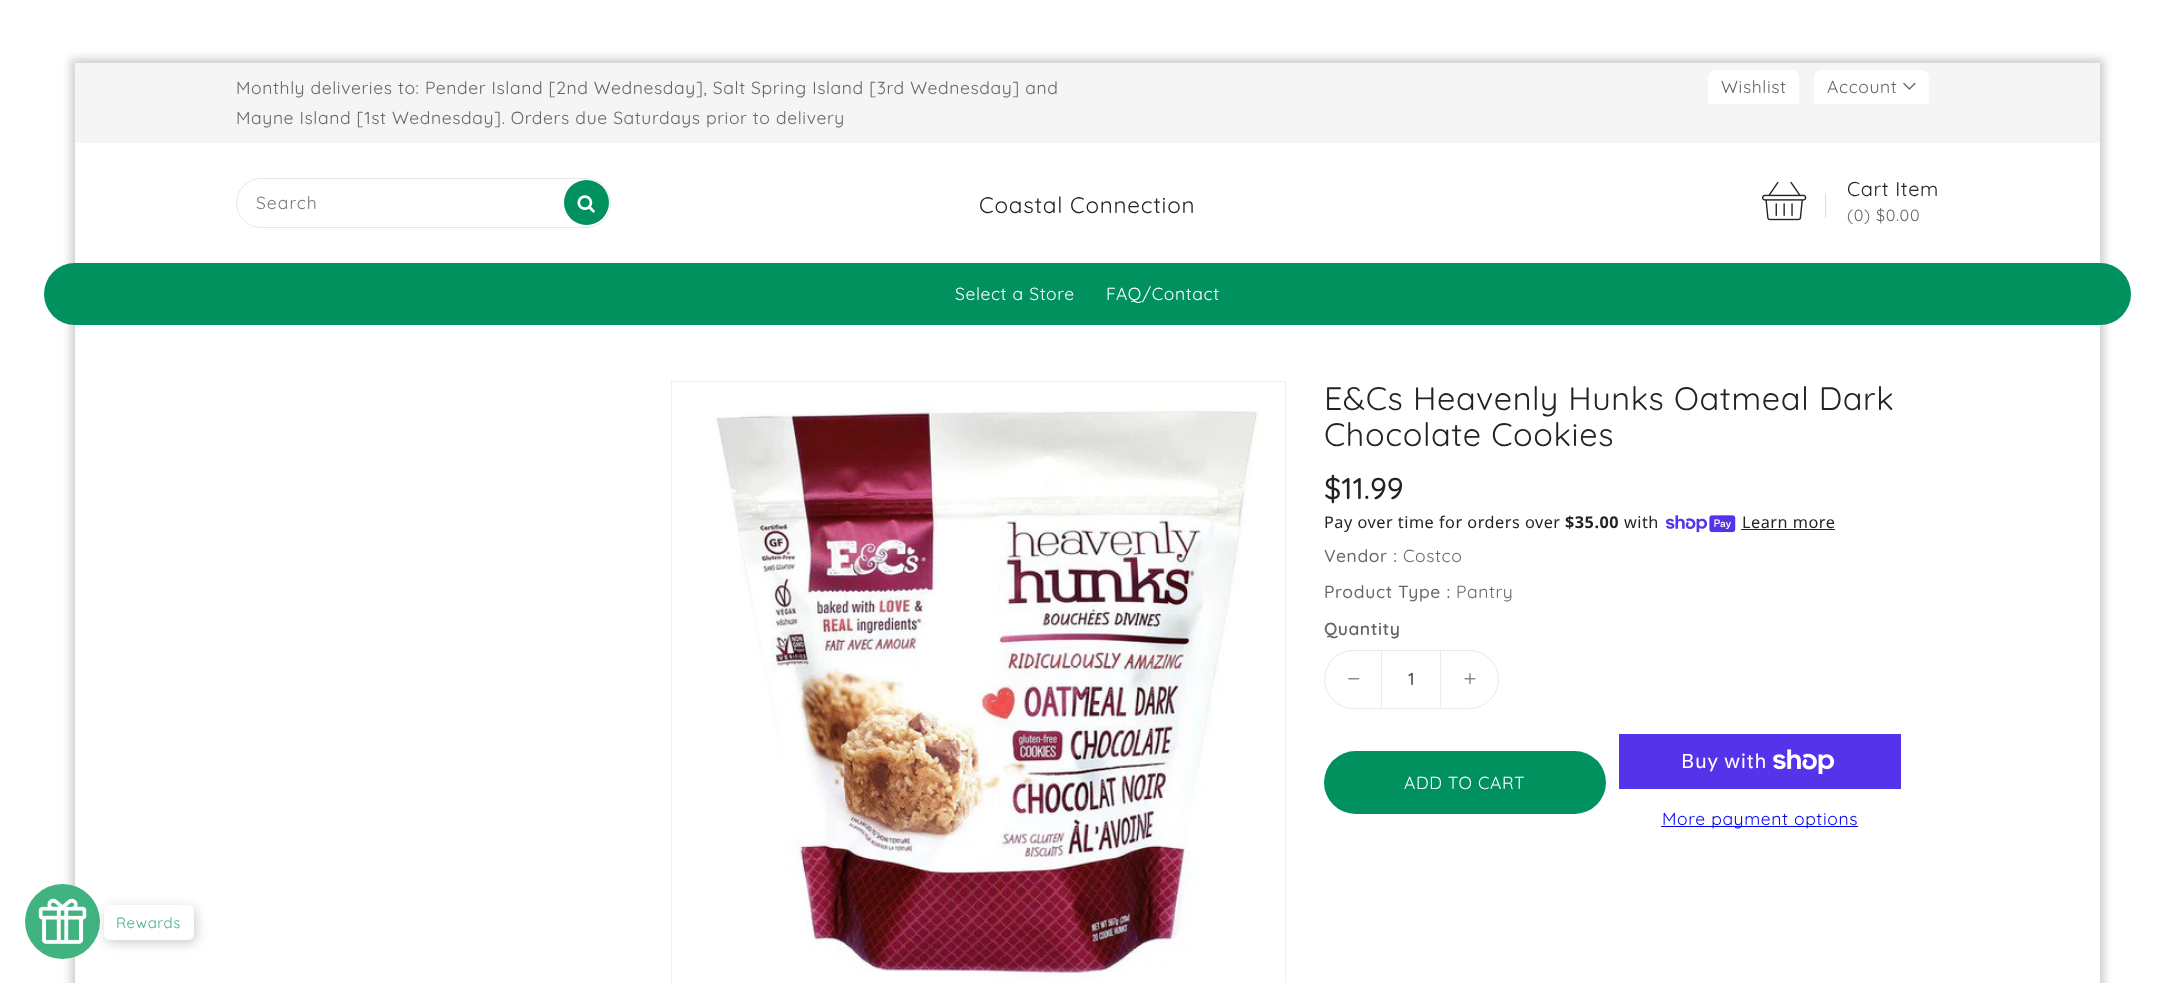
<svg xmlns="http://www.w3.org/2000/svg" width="2175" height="983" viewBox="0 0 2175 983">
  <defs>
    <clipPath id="clip1"><path d="M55 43H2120V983H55ZM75 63H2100V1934H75Z" clip-rule="evenodd"/></clipPath>
    <filter id="blur1" x="-50%" y="-200%" width="200%" height="500%"><feGaussianBlur stdDeviation="5"/></filter>
    <filter id="blur2" x="-50%" y="-200%" width="200%" height="500%"><feGaussianBlur stdDeviation="6"/></filter>
  </defs>
  <rect width="100%" height="100%" fill="#ffffff"/>
  <g clip-path="url(#clip1)">
    <rect x="71" y="59" width="2033" height="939" fill="#000000" fill-opacity="0.2" filter="url(#blur1)"/>
  </g>
  <rect x="75" y="63" width="2025" height="80" fill="#f5f5f5"/>
  <text x="236" y="94" font-family="Quicksand" font-size="17.5" letter-spacing="0.62" fill="#666666">Monthly deliveries to: Pender Island [2nd Wednesday], Salt Spring Island [3rd Wednesday] and</text>
  <text x="236" y="124" font-family="Quicksand" font-size="17.5" letter-spacing="0.62" fill="#666666">Mayne Island [1st Wednesday]. Orders due Saturdays prior to delivery</text>
  <path d="M1716 70H1791C1795.5 70 1799 73.5 1799 78V104H1708V78C1708 73.5 1711.5 70 1716 70Z" fill="#ffffff"/>
  <text x="1721" y="93" font-family="Quicksand" font-size="17.5" letter-spacing="0.62" fill="#666666">Wishlist</text>
  <path d="M1822 70H1921C1925.5 70 1929 73.5 1929 78V104H1814V78C1814 73.5 1817.5 70 1822 70Z" fill="#ffffff"/>
  <text x="1827" y="93" font-family="Quicksand" font-size="17.5" letter-spacing="0.62" fill="#666666">Account</text>
  <image x="1903" y="82" width="13" height="8" href="img1.png"/>
  <rect x="236.5" y="178.5" width="374" height="49" rx="24.5" fill="none" stroke="#e7e7e7"/>
  <text x="256" y="209" font-family="Quicksand" font-size="17.5" letter-spacing="1" fill="#777777">Search</text>
  <circle cx="586.5" cy="202.5" r="22.5" fill="#00915f"/>
  <image x="577" y="195" width="18" height="18" href="img2.png"/>
  <text x="979" y="213" font-family="Quicksand" font-size="22.5" letter-spacing="0.75" fill="#232323">Coastal Connection</text>
  <image x="1762" y="181" width="45" height="40" href="img3.png"/>
  <text x="1847" y="196" font-family="Quicksand" font-size="20" letter-spacing="0.62" fill="#232323">Cart Item</text>
  <rect x="1825" y="193" width="1" height="25" fill="#dddddd"/>
  <text x="1847" y="221" font-family="Quicksand" font-size="16.25" letter-spacing="0.62" fill="#666666">(0)</text>
  <text x="1876" y="221" font-family="Quicksand" font-size="16.25" letter-spacing="0.62" fill="#666666">$0.00</text>
  <rect x="44" y="263" width="2087" height="62" rx="31" fill="#00915f"/>
  <text x="955" y="300" font-family="Quicksand" font-size="17.5" letter-spacing="0.62" fill="#ffffff">Select a Store</text>
  <text x="1106" y="300" font-family="Quicksand" font-size="17.5" letter-spacing="0.62" fill="#ffffff">FAQ/Contact</text>
  <rect x="671.5" y="381.5" width="614" height="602" fill="none" stroke="#eeeeee"/>
  <image x="673" y="383" width="612" height="600" href="img4.png"/>
  <text x="1324" y="410" font-family="Quicksand" font-size="32.5" letter-spacing="0.62" fill="#232323">E&amp;Cs Heavenly Hunks Oatmeal Dark</text>
  <text x="1324" y="446" font-family="Quicksand" font-size="32.5" letter-spacing="0.62" fill="#232323">Chocolate Cookies</text>
  <text x="1324" y="499" font-family="Quicksand" font-size="30" font-weight="500" fill="#232323">$11.99</text>
  <text x="1324" y="528" font-family="Noto Sans" font-size="16.25" letter-spacing="0.5" fill="#232323">Pay over time for orders over</text>
  <text x="1565" y="528" font-family="Noto Sans" font-size="16.25" font-weight="bold" letter-spacing="0.5" fill="#232323">$35.00</text>
  <text x="1624" y="528" font-family="Noto Sans" font-size="16.25" letter-spacing="0.5" fill="#232323">with</text>
  <image x="1666" y="515" width="70" height="18" href="img5.png"/>
  <text x="1742" y="528" font-family="Noto Sans" font-size="16.25" letter-spacing="0.5" fill="#232323">Learn more</text>
  <rect x="1741" y="529" width="94" height="1" fill="#232323"/>
  <text x="1324" y="562" font-family="Quicksand" font-size="17.5" font-weight="500" letter-spacing="0.62" fill="#666666">Vendor :</text>
  <text x="1403" y="562" font-family="Quicksand" font-size="17.5" letter-spacing="0.62" fill="#666666">Costco</text>
  <text x="1324" y="598" font-family="Quicksand" font-size="17.5" font-weight="500" letter-spacing="0.62" fill="#666666">Product Type :</text>
  <text x="1456" y="598" font-family="Quicksand" font-size="17.5" letter-spacing="0.62" fill="#666666">Pantry</text>
  <text x="1324" y="635" font-family="Quicksand" font-size="17.5" font-weight="600" letter-spacing="0.5" fill="#666666">Quantity</text>
  <rect x="1324.5" y="650.5" width="174" height="58" rx="29" fill="none" stroke="#e9e9e9"/>
  <image x="1348" y="678" width="12" height="2" href="img6.png"/>
  <rect x="1440" y="651" width="1" height="57" fill="#ececec"/>
  <rect x="1381" y="651" width="1" height="57" fill="#ececec"/>
  <text x="1408" y="685" font-family="Quicksand" font-size="17.5" font-weight="500" fill="#444444">1</text>
  <image x="1464" y="673" width="12" height="12" href="img7.png"/>
  <rect x="1324" y="751" width="282" height="63" rx="31.5" fill="#00915f"/>
  <text x="1404" y="789" font-family="Quicksand" font-size="17.5" letter-spacing="0.62" fill="#ffffff">ADD TO CART</text>
  <rect x="1619" y="734" width="282" height="55" fill="#5433eb"/>
  <text x="1681" y="768" font-family="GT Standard" font-size="20" letter-spacing="0.62" fill="#ffffff">Buy with</text>
  <image x="1773" y="749" width="62" height="25" href="img8.png"/>
  <rect x="1661" y="826" width="197" height="1" fill="#0000ee"/>
  <text x="1662" y="825" font-family="Quicksand" font-size="17.5" letter-spacing="0.62" fill="#0000ee">More payment options</text>
  <circle cx="62.5" cy="921.5" r="37.5" fill="#40b380"/>
  <image x="38" y="898" width="49" height="46" href="img9.png"/>
  <rect x="106" y="908" width="90" height="35" rx="6" fill="#000000" fill-opacity="0.2" filter="url(#blur2)"/>
  <rect x="104" y="905" width="90" height="35" rx="6" fill="#ffffff"/>
  <text x="116" y="928" font-family="Quicksand" font-size="15" letter-spacing="0.62" fill="#40b380">Rewards</text>
</svg>
